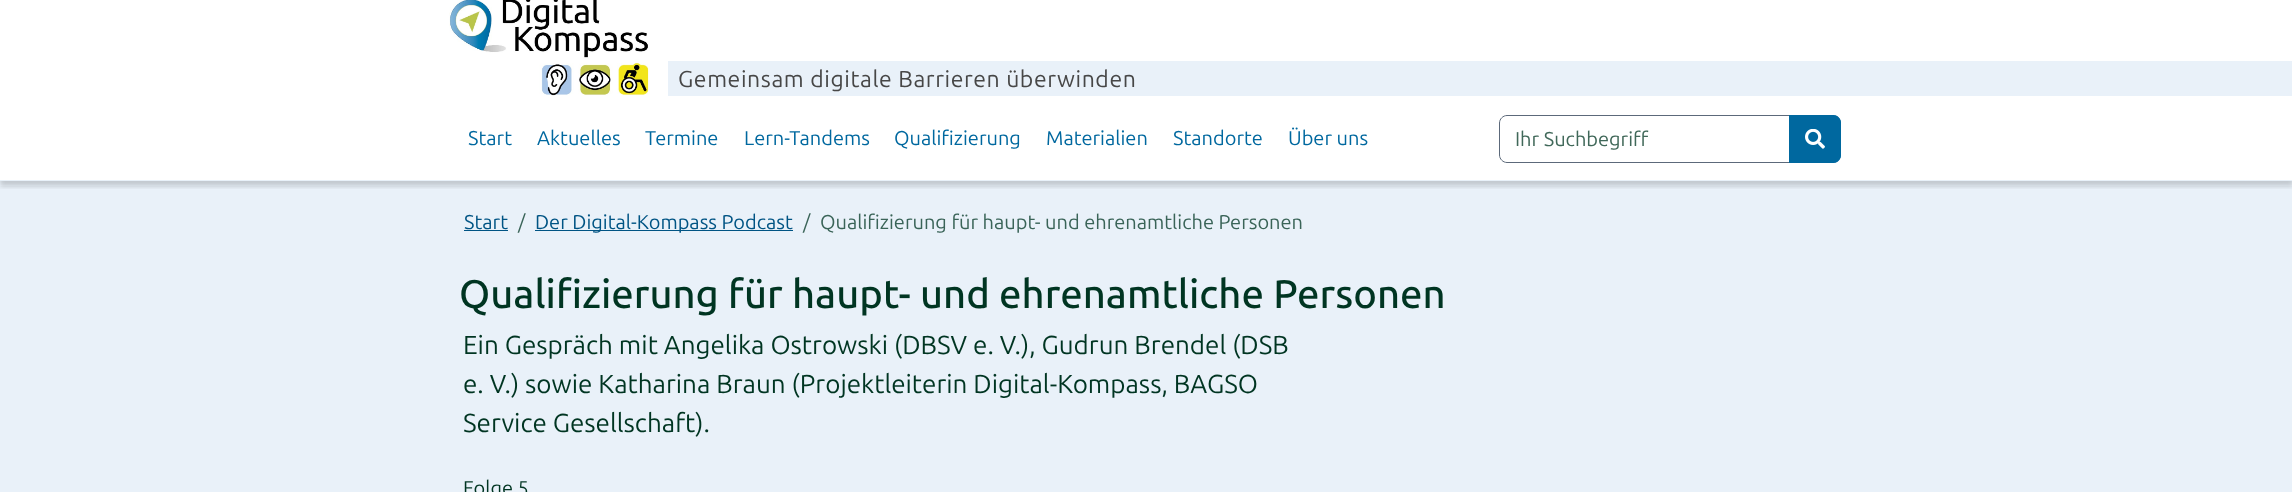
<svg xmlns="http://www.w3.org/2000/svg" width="2292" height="492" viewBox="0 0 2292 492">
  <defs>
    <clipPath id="clip1"><rect x="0" y="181" width="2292" height="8"/></clipPath>
    <filter id="blur1" x="-50%" y="-200%" width="200%" height="500%"><feGaussianBlur stdDeviation="2.5"/></filter>
  </defs>
  <rect width="100%" height="100%" fill="#ffffff"/>
  <rect x="0" y="181" width="2292" height="311" fill="#e9f1f9"/>
  <g clip-path="url(#clip1)">
    <rect x="0" y="-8" width="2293" height="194" fill="#1e1e1e" fill-opacity="0.2" filter="url(#blur1)"/>
  </g>
  <rect x="0" y="180" width="2292" height="1" fill="#e8f1f9"/>
  <image x="449" y="0" width="200" height="96" href="img1.png"/>
  <rect x="668" y="61" width="1624" height="35" fill="#e9f1f9"/>
  <text x="678" y="87" font-family="Ubuntu" font-size="23" letter-spacing="0.6" fill="#474747">Gemeinsam digitale Barrieren überwinden</text>
  <text x="468" y="145" font-family="Ubuntu" font-size="20" fill="#00689f">Start</text>
  <text x="537" y="145" font-family="Ubuntu" font-size="20" fill="#00689f">Aktuelles</text>
  <text x="645" y="145" font-family="Ubuntu" font-size="20" fill="#00689f">Termine</text>
  <text x="744" y="145" font-family="Ubuntu" font-size="20" fill="#00689f">Lern-Tandems</text>
  <text x="894" y="145" font-family="Ubuntu" font-size="20" fill="#00689f">Qualifizierung</text>
  <text x="1046" y="145" font-family="Ubuntu" font-size="20" fill="#00689f">Materialien</text>
  <text x="1173" y="145" font-family="Ubuntu" font-size="20" fill="#00689f">Standorte</text>
  <text x="1288" y="145" font-family="Ubuntu" font-size="20" fill="#00689f">Über uns</text>
  <path d="M1507 115.5H1790.5V162.5H1507C1503 162.5 1499.5 159 1499.5 155V123C1499.5 119 1503 115.5 1507 115.5Z" fill="none" stroke="#5c697a"/>
  <text x="1515" y="146" font-family="Ubuntu" font-size="20" fill="#406859">Ihr Suchbegriff</text>
  <path d="M1789 115H1833C1837.5 115 1841 118.5 1841 123V155C1841 159.5 1837.5 163 1833 163H1789Z" fill="#00689f"/>
  <image x="1805" y="129" width="20" height="20" href="img2.png"/>
  <path d="M1789.5 115.5H1833C1837 115.5 1840.5 119 1840.5 123V155C1840.5 159 1837 162.5 1833 162.5H1789.5Z" fill="none" stroke="#00689f"/>
  <text x="464" y="229" font-family="Ubuntu" font-size="20" fill="#005484">Start</text>
  <rect x="464" y="230" width="44" height="1" fill="#005484"/>
  <text x="518" y="229" font-family="Ubuntu" font-size="20" fill="#3a6458">/</text>
  <rect x="535" y="230" width="258" height="1" fill="#005484"/>
  <text x="535" y="229" font-family="Ubuntu" font-size="20" fill="#005484">Der Digital-Kompass Podcast</text>
  <text x="803" y="229" font-family="Ubuntu" font-size="20" fill="#3a6458">/</text>
  <text x="820" y="229" font-family="Ubuntu" font-size="20" fill="#3a6458">Qualifizierung für haupt- und ehrenamtliche Personen</text>
  <text x="459" y="308" font-family="Ubuntu" font-size="40" font-weight="500" fill="#003522">Qualifizierung für haupt- und ehrenamtliche Personen</text>
  <text x="463" y="354" font-family="Ubuntu" font-size="26" fill="#003522">Ein Gespräch mit Angelika Ostrowski (DBSV e. V.), Gudrun Brendel (DSB</text>
  <text x="463" y="393" font-family="Ubuntu" font-size="26" fill="#003522">e. V.) sowie Katharina Braun (Projektleiterin Digital-Kompass, BAGSO</text>
  <text x="463" y="432" font-family="Ubuntu" font-size="26" fill="#003522">Service Gesellschaft).</text>
  <text x="463" y="495" font-family="Ubuntu" font-size="20" fill="#003522">Folge 5</text>
</svg>
